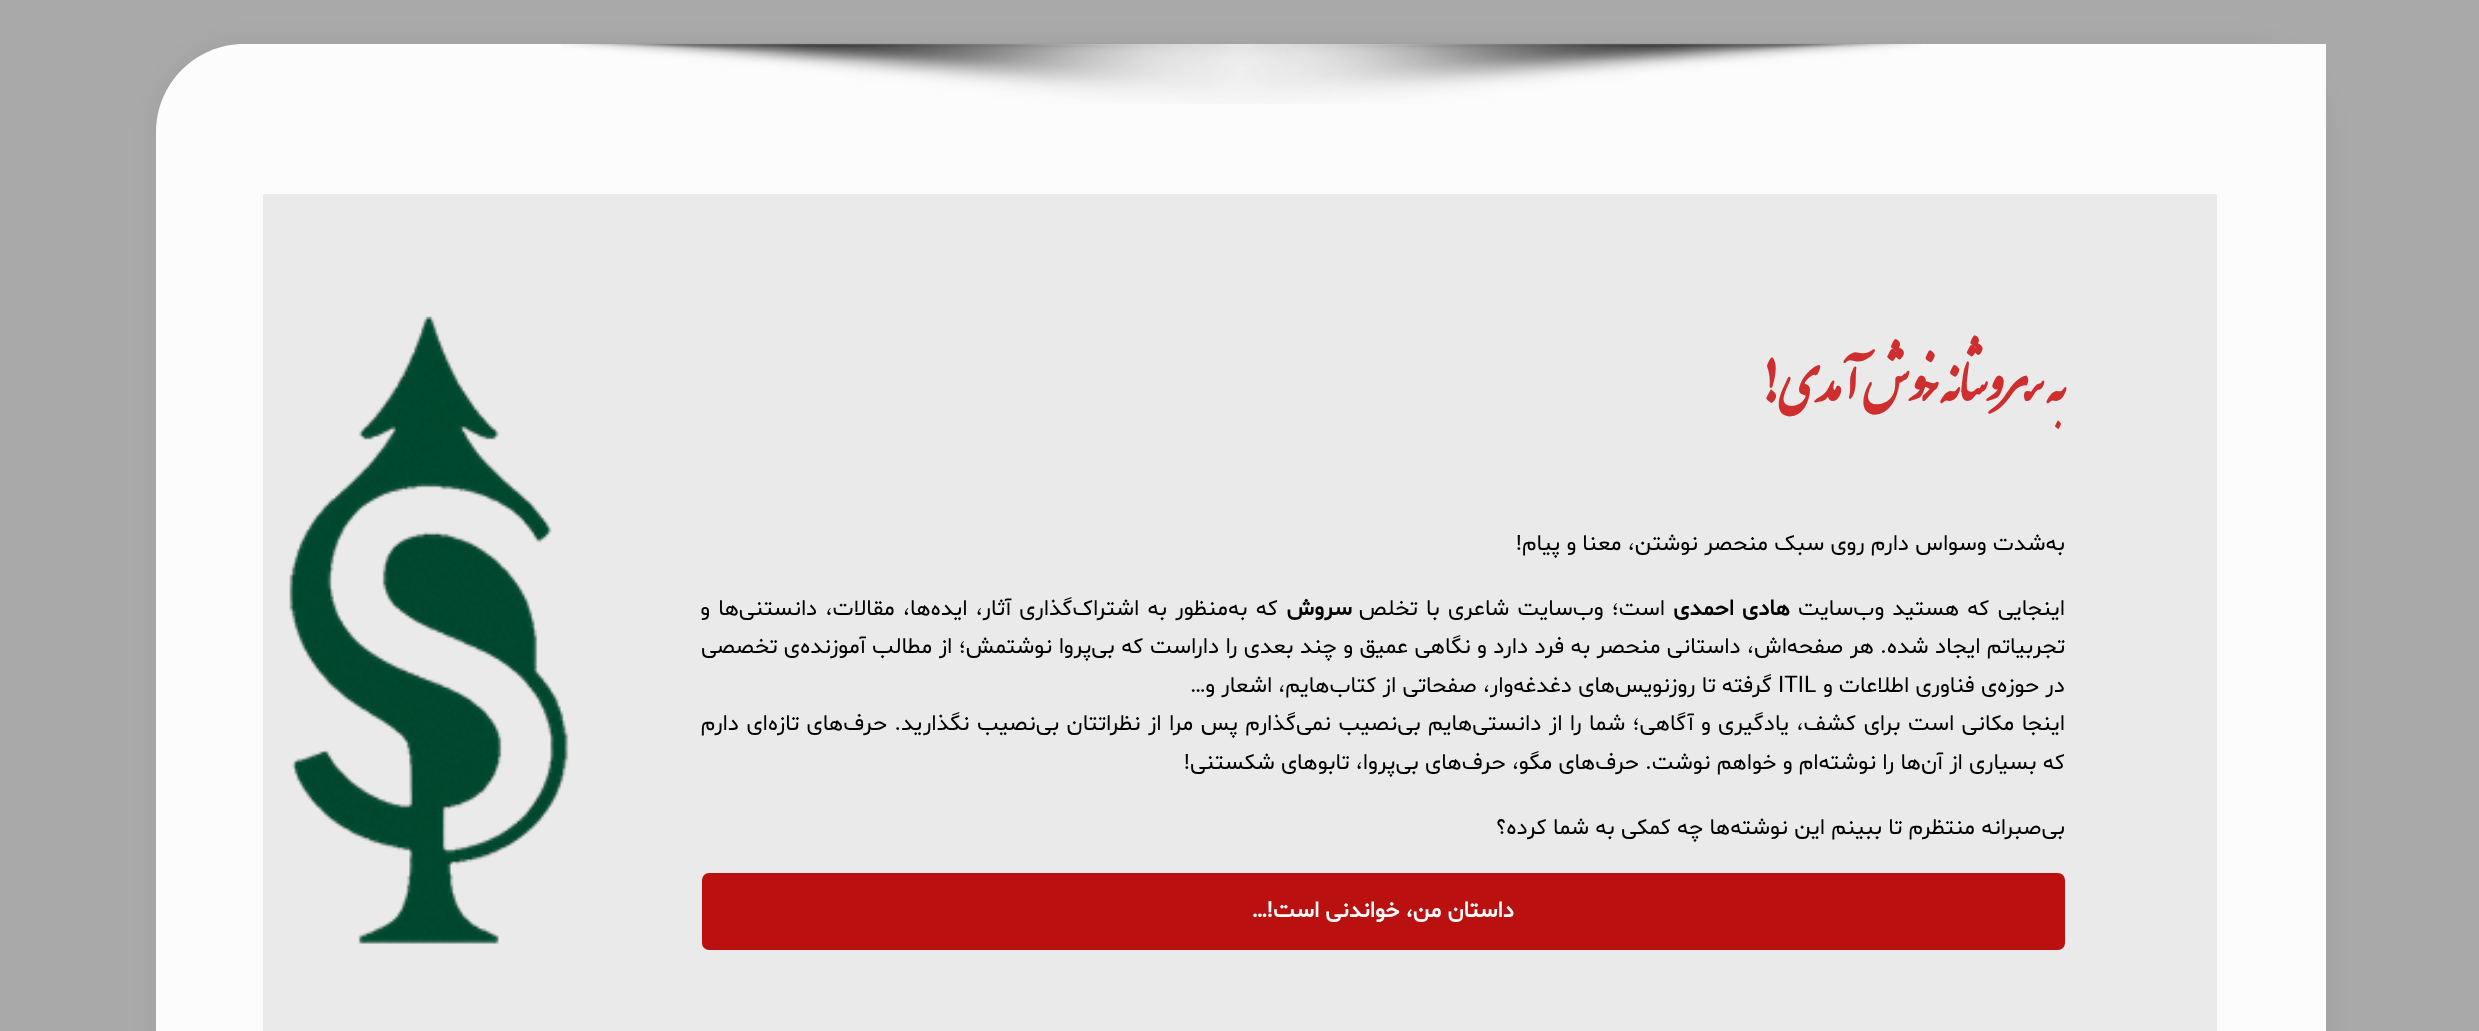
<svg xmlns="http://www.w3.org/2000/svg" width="2479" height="1031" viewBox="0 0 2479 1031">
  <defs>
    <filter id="blur1" x="-50%" y="-200%" width="200%" height="500%"><feGaussianBlur stdDeviation="13"/></filter>
  </defs>
  <rect width="100%" height="100%" fill="#a9a9a9"/>
  <rect x="156" y="44" width="2170" height="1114" rx="88" fill="#000000" fill-opacity="0.06" filter="url(#blur1)"/>
  <path d="M244 44H2326V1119H156V132C156 83.5 195.5 44 244 44Z" fill="#fcfcfc"/>
  <image x="561" y="43" width="1360" height="61" href="img1.png"/>
  <rect x="263" y="194" width="1954" height="837" fill="#eaeaea"/>
  <text x="2065" y="401" font-family="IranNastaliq" font-size="56" font-weight="bold" direction="rtl" fill="#cf2e2e">به</text>
  <text x="2043" y="401" font-family="IranNastaliq" font-size="56" font-weight="bold" direction="rtl" fill="#cf2e2e">سروشانه</text>
  <text x="1937" y="401" font-family="IranNastaliq" font-size="56" font-weight="bold" direction="rtl" fill="#cf2e2e">خوش آمدی!</text>
  <text x="2065" y="550" font-family="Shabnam" font-size="22.75" direction="rtl" fill="#000000">به‌شدت وسواس دارم روی سبک منحصر نوشتن، معنا و پیام!</text>
  <text x="2065" y="615" word-spacing="2" font-family="Shabnam" font-size="22.75" direction="rtl" fill="#000000">اینجایی که هستید وب‌سایت</text>
  <text x="1790" y="615" word-spacing="2" font-family="Shabnam" font-size="22.75" font-weight="bold" direction="rtl" fill="#000000">هادی احمدی</text>
  <text x="1665" y="615" word-spacing="2" font-family="Shabnam" font-size="22.75" direction="rtl" fill="#000000">است؛ وب‌سایت شاعری با تخلص</text>
  <text x="1352" y="615" font-family="Shabnam" font-size="22.75" font-weight="bold" direction="rtl" fill="#000000">سروش</text>
  <text x="1278" y="615" word-spacing="2" font-family="Shabnam" font-size="22.75" direction="rtl" fill="#000000">که به‌منظور به اشتراک‌گذاری آثار، ایده‌ها، مقالات، دانستنی‌ها و</text>
  <text x="2065" y="653" word-spacing="0.2" font-family="Shabnam" font-size="22.75" direction="rtl" fill="#000000">تجربیاتم ایجاد شده. هر صفحه‌اش، داستانی منحصر به فرد دارد و نگاهی عمیق و چند بعدی را داراست که بی‌پروا نوشتمش؛ از مطالب آموزنده‌ی تخصصی</text>
  <text x="2065" y="692" font-family="Shabnam" font-size="22.75" direction="rtl" fill="#000000">در حوزه‌ی فناوری اطلاعات و</text>
  <text x="1778" y="692" font-family="Shabnam" font-size="22.75" fill="#000000">ITIL</text>
  <text x="1772" y="692" font-family="Shabnam" font-size="22.75" direction="rtl" fill="#000000">گرفته تا روزنویس‌های دغدغه‌وار، صفحاتی از کتاب‌هایم، اشعار و…</text>
  <text x="2065" y="730" word-spacing="1.2" font-family="Shabnam" font-size="22.75" direction="rtl" fill="#000000">اینجا مکانی است برای کشف، یادگیری و آگاهی؛ شما را از دانستی‌هایم بی‌نصیب نمی‌گذارم پس مرا از نظراتتان بی‌نصیب نگذارید. حرف‌های تازه‌ای دارم</text>
  <text x="2065" y="769" font-family="Shabnam" font-size="22.75" direction="rtl" fill="#000000">که بسیاری از آن‌ها را نوشته‌ام و خواهم نوشت. حرف‌های مگو، حرف‌های بی‌پروا، تابوهای شکستنی!</text>
  <text x="2065" y="834" font-family="Shabnam" font-size="22.75" direction="rtl" fill="#000000">بی‌صبرانه منتظرم تا ببینم این نوشته‌ها چه کمکی به شما کرده؟</text>
  <rect x="702" y="873" width="1363" height="77" rx="7" fill="#bb1010"/>
  <text x="1514" y="917" font-family="Shabnam" font-size="22.75" font-weight="bold" direction="rtl" fill="#ffffff">داستان من، خواندنی است!…</text>
  <image x="289" y="316" width="280" height="628" href="img2.png"/>
</svg>
